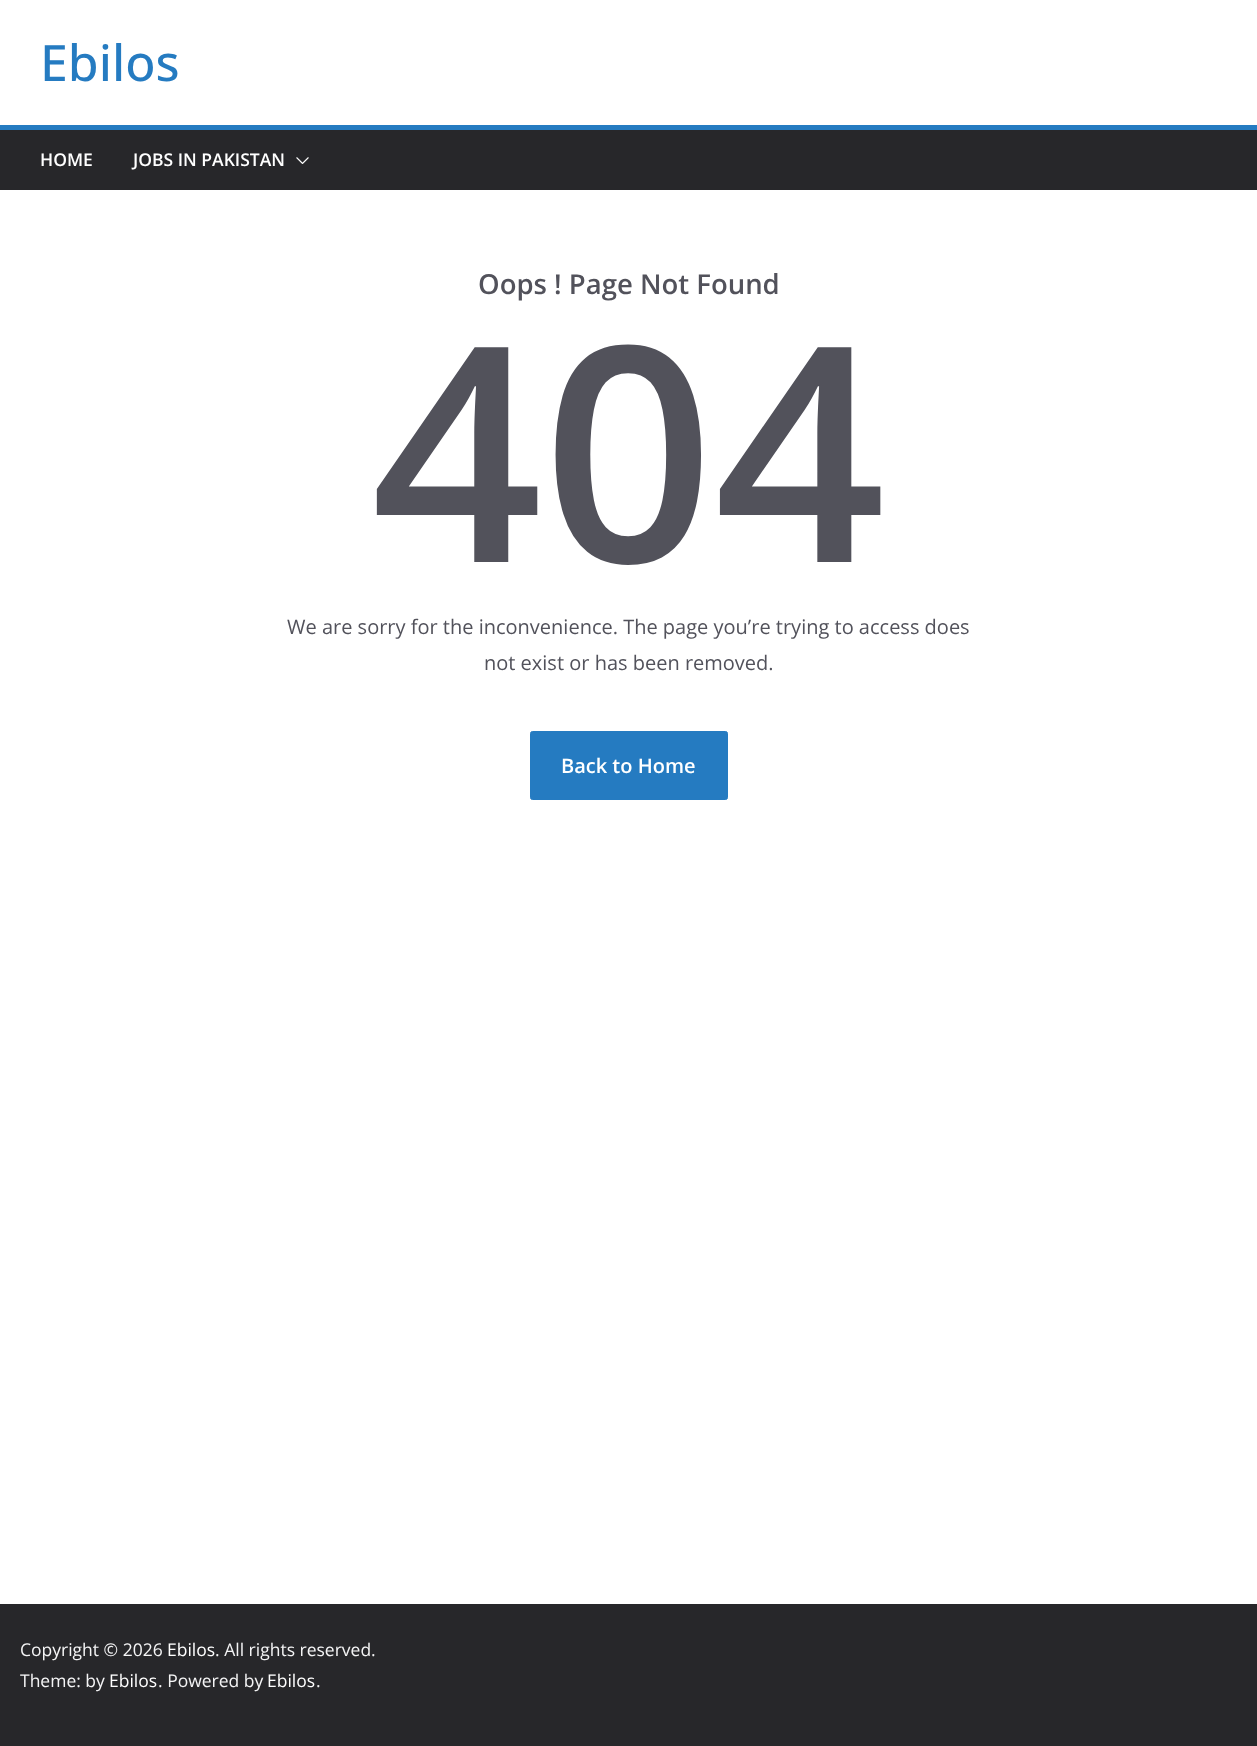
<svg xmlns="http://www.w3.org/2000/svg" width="1257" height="1746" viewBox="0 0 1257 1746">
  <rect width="100%" height="100%" fill="#ffffff"/>
  <text x="40" y="81" font-family="Open Sans" font-size="50" font-weight="500" fill="#257bc1">Ebilos</text>
  <rect x="0" y="130" width="1257" height="60" fill="#27272a"/>
  <rect x="0" y="125" width="1257" height="5" fill="#257bc1"/>
  <text x="40" y="166" font-family="Open Sans" font-size="17.5" font-weight="600" fill="#ffffff">HOME</text>
  <text x="133" y="166" font-family="Open Sans" font-size="17.5" font-weight="600" fill="#ffffff">JOBS IN PAKISTAN</text>
  <image x="296" y="157" width="13" height="7" href="img1.png"/>
  <text x="478" y="294" font-family="Open Sans" font-size="27.5" font-weight="600" fill="#52525b">Oops ! Page Not Found</text>
  <text x="371" y="562" font-family="Open Sans" font-size="300" font-weight="600" fill="#52525b">404</text>
  <text x="287" y="634" font-family="Open Sans" font-size="20" fill="#52525b">We are sorry for the inconvenience. The page you’re trying to access does</text>
  <text x="484" y="670" font-family="Open Sans" font-size="20" fill="#52525b">not exist or has been removed.</text>
  <rect x="530.5" y="731.5" width="197" height="68" rx="2" fill="#257bc1" stroke="#257bc1"/>
  <text x="561" y="773" font-family="Open Sans" font-size="20" font-weight="600" fill="#ffffff">Back to Home</text>
  <rect x="0" y="1604" width="1257" height="142" fill="#27272a"/>
  <text x="20" y="1656" font-family="Open Sans" font-size="17.5" fill="#f4f4f5">Copyright © 2026</text>
  <text x="167" y="1656" font-family="Open Sans" font-size="17.5" fill="#ffffff">Ebilos</text>
  <text x="215" y="1656" font-family="Open Sans" font-size="17.5" fill="#f4f4f5">. All rights reserved.</text>
  <text x="20" y="1687" font-family="Open Sans" font-size="17.5" fill="#f4f4f5">Theme: by</text>
  <text x="109" y="1687" font-family="Open Sans" font-size="17.5" fill="#ffffff">Ebilos</text>
  <text x="158" y="1687" font-family="Open Sans" font-size="17.5" fill="#f4f4f5">. Powered by</text>
  <text x="267" y="1687" font-family="Open Sans" font-size="17.5" fill="#ffffff">Ebilos</text>
  <text x="316" y="1687" font-family="Open Sans" font-size="17.5" fill="#f4f4f5">.</text>
</svg>
